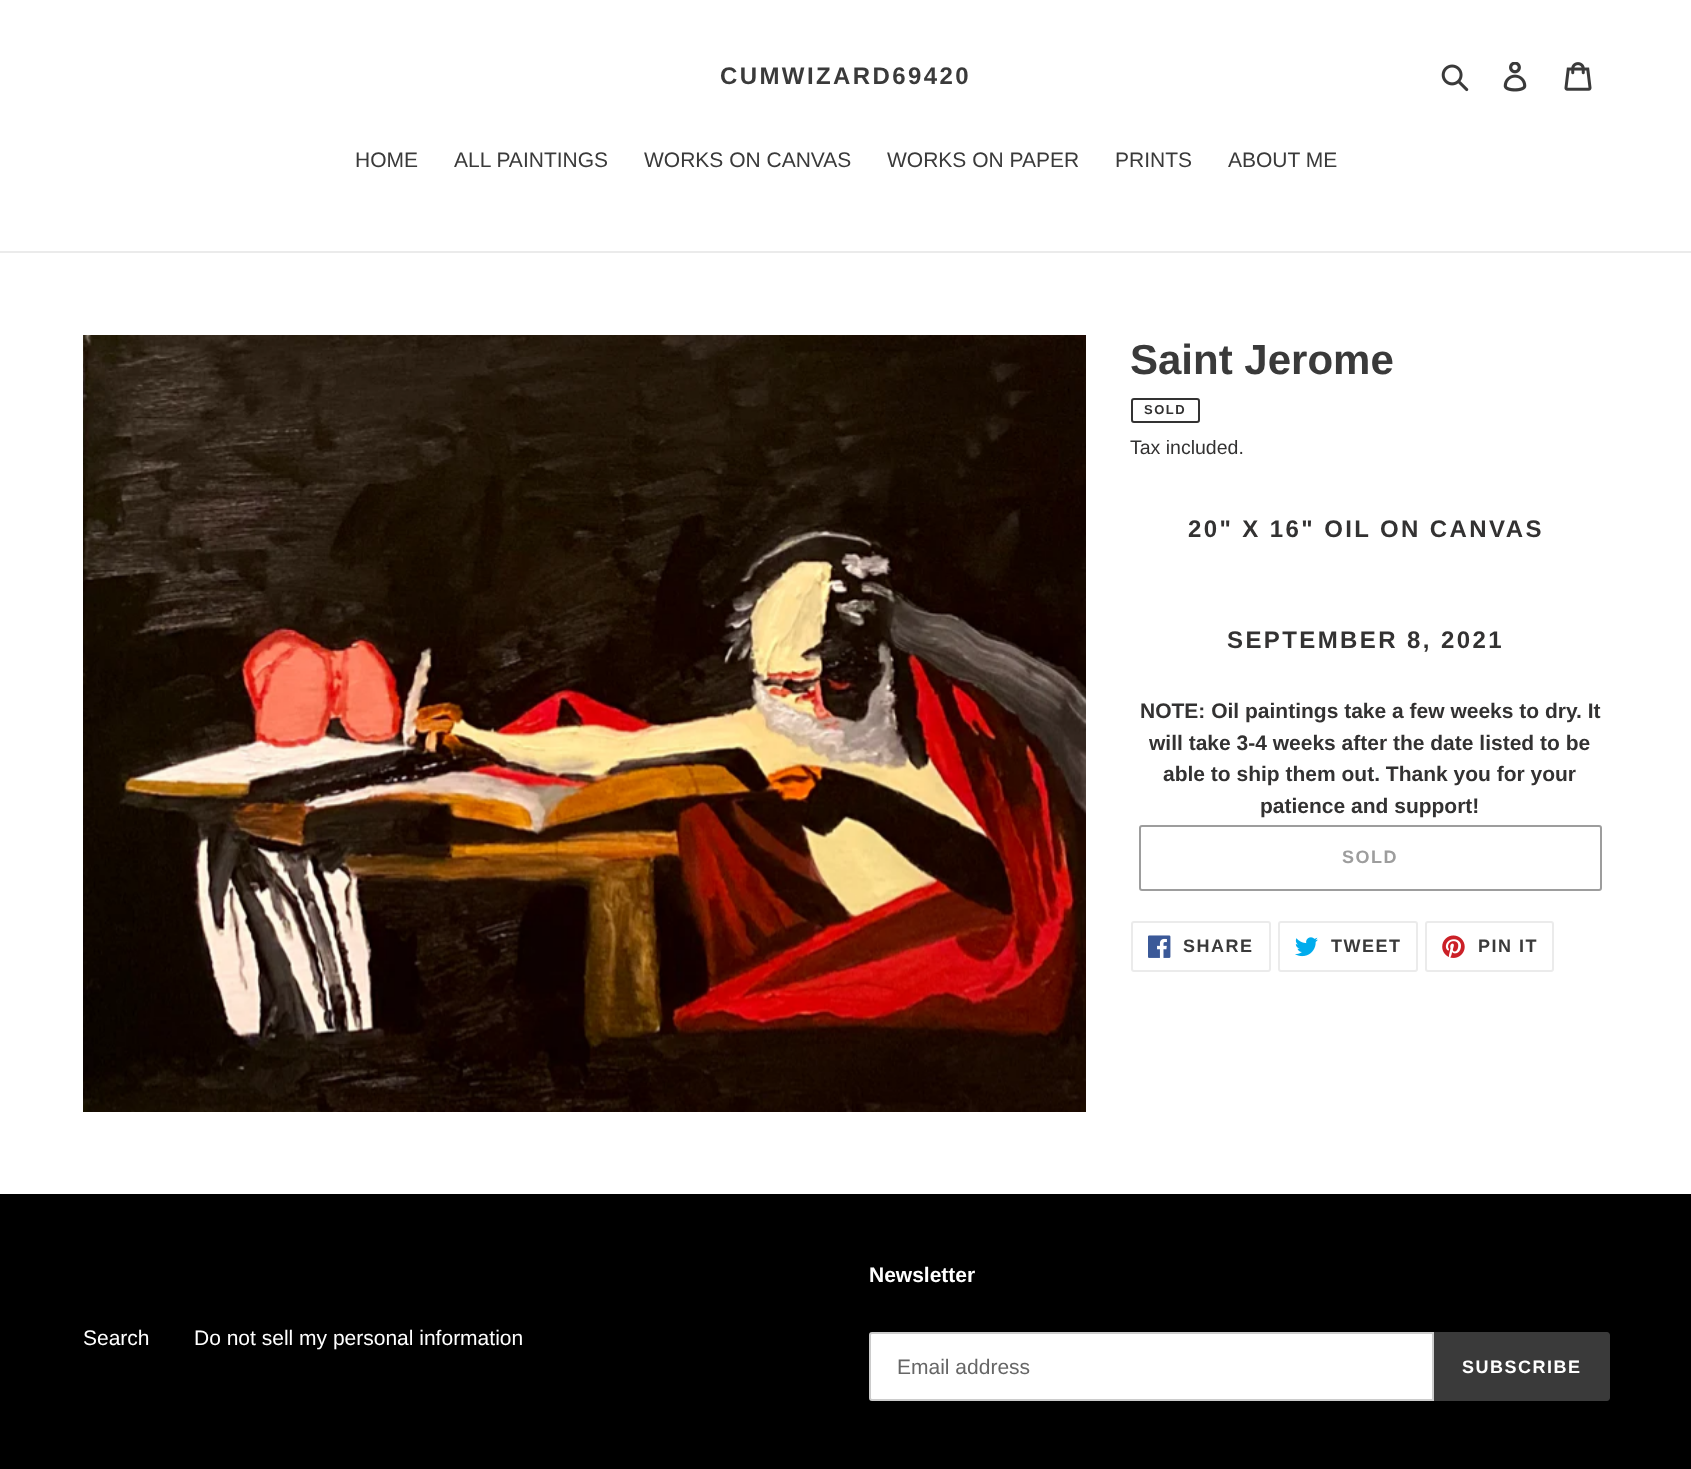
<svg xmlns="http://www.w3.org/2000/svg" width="1691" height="1469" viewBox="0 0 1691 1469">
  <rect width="100%" height="100%" fill="#ffffff"/>
  <text x="720" y="84" font-family="Liberation Sans" font-size="24" font-weight="bold" letter-spacing="2.4" fill="#3a3a3a">CUMWIZARD69420</text>
  <image x="1441" y="64" width="28" height="28" href="img1.png"/>
  <image x="1503" y="62" width="24" height="30" href="img2.png"/>
  <image x="1564" y="62" width="28" height="29" href="img3.png"/>
  <rect x="0" y="251" width="1691" height="2" fill="#ebebeb"/>
  <text x="355" y="167" font-family="Liberation Sans" font-size="21" fill="#3a3a3a">HOME</text>
  <text x="454" y="167" font-family="Liberation Sans" font-size="21" fill="#3a3a3a">ALL PAINTINGS</text>
  <text x="644" y="167" font-family="Liberation Sans" font-size="21" fill="#3a3a3a">WORKS ON CANVAS</text>
  <text x="887" y="167" font-family="Liberation Sans" font-size="21" fill="#3a3a3a">WORKS ON PAPER</text>
  <text x="1115" y="167" font-family="Liberation Sans" font-size="21" fill="#3a3a3a">PRINTS</text>
  <text x="1228" y="167" font-family="Liberation Sans" font-size="21" fill="#3a3a3a">ABOUT ME</text>
  <image x="83" y="335" width="1003" height="777" href="img4.png"/>
  <text x="1130" y="374" font-family="Liberation Sans" font-size="42" font-weight="bold" fill="#3a3a3a">Saint Jerome</text>
  <rect x="1132" y="399" width="67" height="23" rx="2" fill="none" stroke="#333232" stroke-width="2"/>
  <text x="1144" y="414" font-family="Liberation Sans" font-size="13" font-weight="bold" letter-spacing="1.5" fill="#333232">SOLD</text>
  <text x="1130" y="454" font-family="Liberation Sans" font-size="19.5" fill="#333232">Tax included.</text>
  <text x="1188" y="537" font-family="Liberation Sans" font-size="24" font-weight="bold" letter-spacing="2.4" fill="#333232">20" X 16" OIL ON CANVAS</text>
  <text x="1227" y="648" font-family="Liberation Sans" font-size="24" font-weight="bold" letter-spacing="2.4" fill="#333232">SEPTEMBER 8, 2021</text>
  <text x="1140" y="718" font-family="Liberation Sans" font-size="21" font-weight="bold" fill="#333232">NOTE: Oil paintings take a few weeks to dry. It</text>
  <text x="1149" y="750" font-family="Liberation Sans" font-size="21" font-weight="bold" fill="#333232">will take 3-4 weeks after the date listed to be</text>
  <text x="1163" y="781" font-family="Liberation Sans" font-size="21" font-weight="bold" fill="#333232">able to ship them out. Thank you for your</text>
  <text x="1260" y="813" font-family="Liberation Sans" font-size="21" font-weight="bold" fill="#333232">patience and support!</text>
  <rect x="1140" y="826" width="461" height="64" rx="2" fill="none" stroke="#9d9d9d" stroke-width="2"/>
  <text x="1342" y="863" font-family="Liberation Sans" font-size="18" font-weight="bold" letter-spacing="1.5" fill="#9d9d9d">SOLD</text>
  <rect x="1132" y="922" width="138" height="49" rx="2" fill="none" stroke="#ebebeb" stroke-width="2"/>
  <image x="1148" y="935" width="23" height="23" href="img5.png"/>
  <text x="1183" y="952" font-family="Liberation Sans" font-size="18" font-weight="bold" letter-spacing="1.5" fill="#3a3a3a">SHARE</text>
  <rect x="1279" y="922" width="138" height="49" rx="2" fill="none" stroke="#ebebeb" stroke-width="2"/>
  <image x="1295" y="937" width="23" height="20" href="img6.png"/>
  <text x="1331" y="952" font-family="Liberation Sans" font-size="18" font-weight="bold" letter-spacing="1.5" fill="#3a3a3a">TWEET</text>
  <rect x="1426" y="922" width="127" height="49" rx="2" fill="none" stroke="#ebebeb" stroke-width="2"/>
  <image x="1442" y="935" width="23" height="23" href="img7.png"/>
  <text x="1478" y="952" font-family="Liberation Sans" font-size="18" font-weight="bold" letter-spacing="1.5" fill="#3a3a3a">PIN IT</text>
  <rect x="0" y="1194" width="1691" height="275" fill="#000000"/>
  <text x="83" y="1345" font-family="Liberation Sans" font-size="21" fill="#ffffff">Search</text>
  <text x="194" y="1345" font-family="Liberation Sans" font-size="21" fill="#ffffff">Do not sell my personal information</text>
  <text x="869" y="1282" font-family="Liberation Sans" font-size="21" font-weight="bold" fill="#ffffff">Newsletter</text>
  <path d="M872 1333H1433V1400H872C871 1400 870 1399 870 1398V1335C870 1334 871 1333 872 1333Z" fill="#ffffff" stroke="#cccccc" stroke-width="2"/>
  <text x="897" y="1374" font-family="Liberation Sans" font-size="21" fill="#666666">Email address</text>
  <path d="M1434 1332H1607C1608.5 1332 1610 1333.5 1610 1335V1398C1610 1399.5 1608.5 1401 1607 1401H1434Z" fill="#3a3a3a"/>
  <text x="1462" y="1373" font-family="Liberation Sans" font-size="18" font-weight="bold" letter-spacing="1.5" fill="#ffffff">SUBSCRIBE</text>
</svg>
